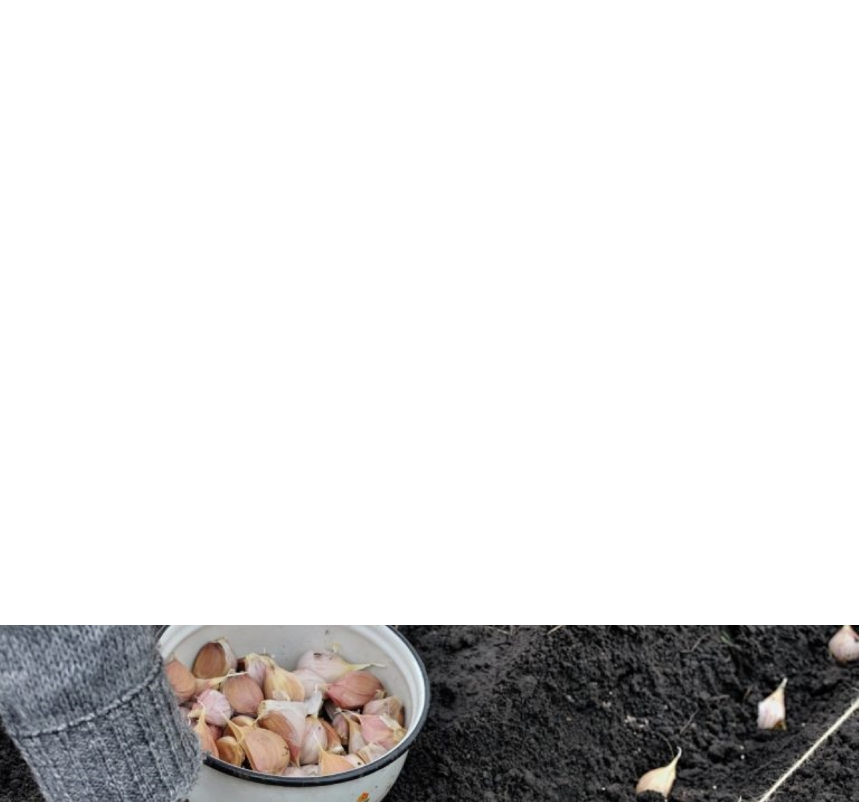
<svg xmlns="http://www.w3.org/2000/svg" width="859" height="802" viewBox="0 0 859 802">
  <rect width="100%" height="100%" fill="#ffffff"/>
  <image x="0" y="625" width="859" height="177" href="img1.png"/>
</svg>
